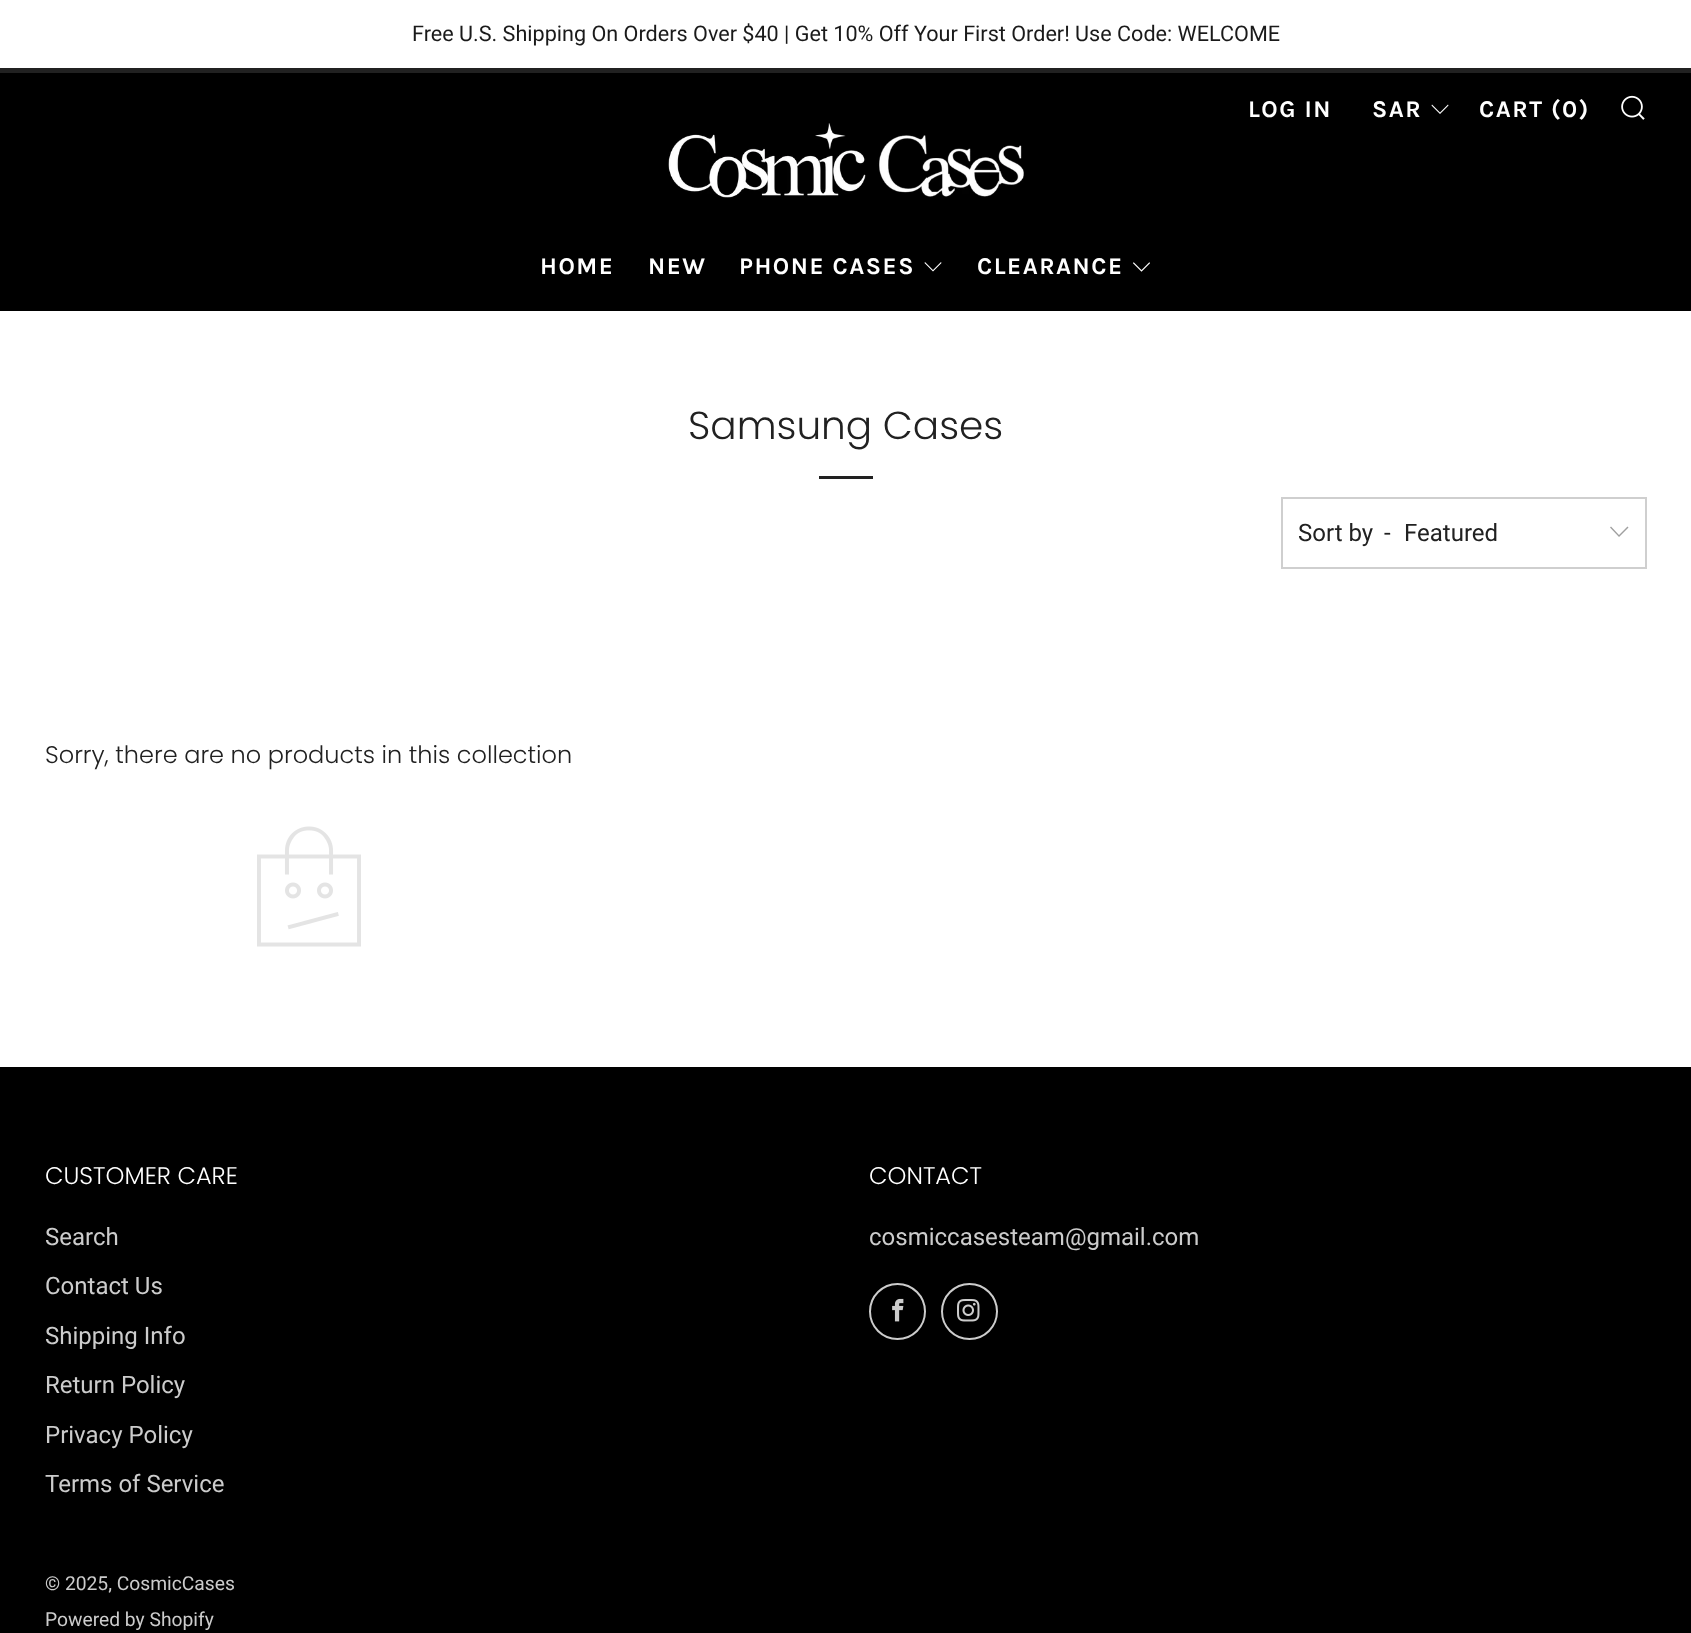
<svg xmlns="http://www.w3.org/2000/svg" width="1691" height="1633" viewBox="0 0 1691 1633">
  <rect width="100%" height="100%" fill="#ffffff"/>
  <text x="412" y="41" font-family="Roboto" font-size="21.6" fill="#1a1a1a">Free U.S. Shipping On Orders Over $40 | Get 10% Off Your First Order! Use Code: WELCOME</text>
  <rect x="0" y="73" width="1691" height="238" fill="#000000"/>
  <rect x="0" y="68" width="1691" height="5" fill="#212121"/>
  <text x="1248" y="117" font-family="Karla" font-size="24" font-weight="bold" letter-spacing="1.5" fill="#ffffff">LOG IN</text>
  <text x="1372" y="117" font-family="Karla" font-size="24" font-weight="bold" letter-spacing="1.5" fill="#ffffff">SAR</text>
  <path d="M1432 104.5L1431.5 105.5L1440 114L1448.5 105.5L1448 104.5L1440 112.5Z" fill="#ffffff"/>
  <text x="1479" y="117" font-family="Karla" font-size="24" font-weight="bold" letter-spacing="1.5" fill="#ffffff">CART (0)</text>
  <image x="1621" y="95" width="24" height="25" href="img1.png"/>
  <text x="540" y="274" font-family="Karla" font-size="24" font-weight="bold" letter-spacing="1.5" fill="#ffffff">HOME</text>
  <text x="648" y="274" font-family="Karla" font-size="24" font-weight="bold" letter-spacing="1.5" fill="#ffffff">NEW</text>
  <text x="739" y="274" font-family="Karla" font-size="24" font-weight="bold" letter-spacing="1.5" fill="#ffffff">PHONE CASES</text>
  <path d="M925 262L924.5 263L933 271.5L941.5 263L941 262L933 270Z" fill="#ffffff"/>
  <text x="977" y="274" font-family="Karla" font-size="24" font-weight="bold" letter-spacing="1.5" fill="#ffffff">CLEARANCE</text>
  <image x="1133" y="262" width="17" height="10" href="img2.png"/>
  <image x="668" y="123" width="356" height="75" href="img3.png"/>
  <text x="688" y="439" font-family="Poppins" font-size="39" font-weight="300" fill="#212121">Samsung Cases</text>
  <rect x="819" y="476" width="54" height="3" fill="#212121"/>
  <rect x="1282" y="498" width="364" height="70" fill="none" stroke="#cfcfcf" stroke-width="2"/>
  <text x="1298" y="541" font-family="Roboto" font-size="24" fill="#212121">Sort by</text>
  <text x="1384" y="541" font-family="Roboto" font-size="24" fill="#212121">-</text>
  <text x="1404" y="541" font-family="Roboto" font-size="24" fill="#212121">Featured</text>
  <path d="M1611 526.5L1610 527.5L1619 537L1628.5 527.5L1627.5 526.5L1619 535Z" fill="#a0a0a0"/>
  <text x="45" y="763" font-family="Poppins" font-size="24" font-weight="300" fill="#212121">Sorry, there are no products in this collection</text>
  <image x="257" y="826" width="104" height="121" href="img4.png"/>
  <rect x="0" y="1067" width="1691" height="566" fill="#000000"/>
  <text x="45" y="1184" font-family="Poppins" font-size="24" font-weight="300" fill="#ffffff">CUSTOMER CARE</text>
  <text x="45" y="1245" font-family="Roboto" font-size="24" fill="#cccccc">Search</text>
  <text x="45" y="1294" font-family="Roboto" font-size="24" fill="#cccccc">Contact Us</text>
  <text x="45" y="1344" font-family="Roboto" font-size="24" fill="#cccccc">Shipping Info</text>
  <text x="45" y="1393" font-family="Roboto" font-size="24" fill="#cccccc">Return Policy</text>
  <text x="45" y="1443" font-family="Roboto" font-size="24" fill="#cccccc">Privacy Policy</text>
  <text x="45" y="1492" font-family="Roboto" font-size="24" fill="#cccccc">Terms of Service</text>
  <text x="869" y="1184" font-family="Poppins" font-size="24" font-weight="300" fill="#ffffff">CONTACT</text>
  <text x="869" y="1245" font-family="Roboto" font-size="24" fill="#cccccc">cosmiccasesteam@gmail.com</text>
  <circle cx="897.5" cy="1311.5" r="27.5" fill="none" stroke="#cccccc" stroke-width="2"/>
  <image x="892" y="1298" width="12" height="24" href="img5.png"/>
  <circle cx="969.5" cy="1311.5" r="27.5" fill="none" stroke="#cccccc" stroke-width="2"/>
  <image x="957" y="1299" width="23" height="23" href="img6.png"/>
  <text x="45" y="1590" font-family="Roboto" font-size="19.25" fill="#cccccc">© 2025, CosmicCases</text>
  <text x="45" y="1626" font-family="Roboto" font-size="19.25" fill="#cccccc">Powered by Shopify</text>
</svg>
